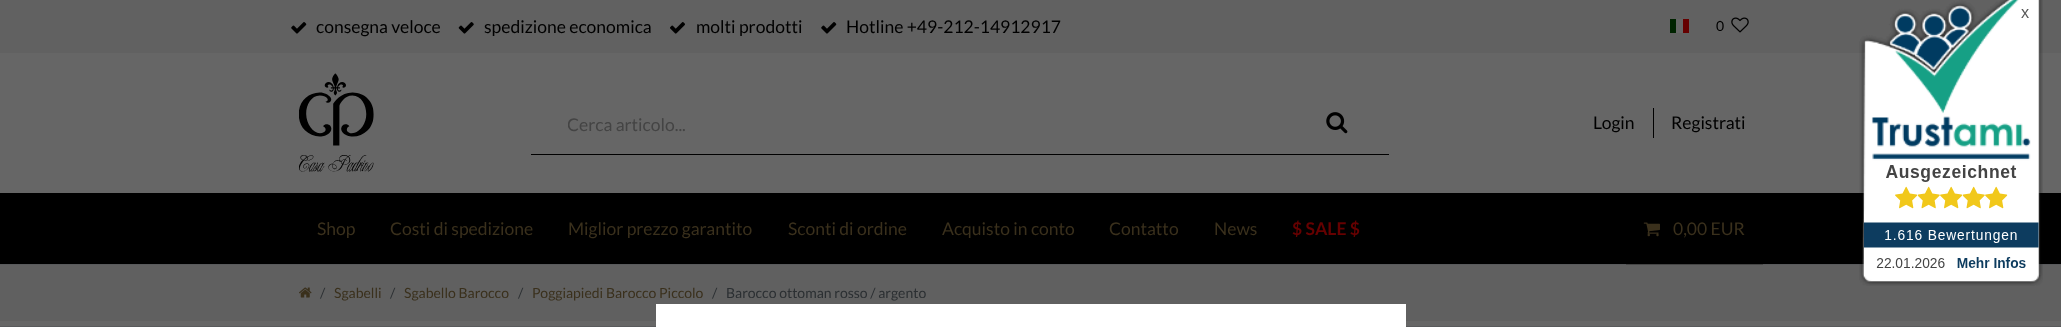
<svg xmlns="http://www.w3.org/2000/svg" width="2061" height="327" viewBox="0 0 2061 327">
  <defs>
    <clipPath id="clip1"><rect x="568" y="114" width="700" height="21"/></clipPath>
    <clipPath id="clip2"><path d="M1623 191H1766V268H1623ZM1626 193H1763V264H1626Z" clip-rule="evenodd"/></clipPath>
    <filter id="blur1" x="-50%" y="-200%" width="200%" height="500%"><feGaussianBlur stdDeviation="0.5"/></filter>
  </defs>
  <rect width="100%" height="100%" fill="#666666"/>
  <rect x="0" y="0" width="2061" height="53" fill="#616161"/>
  <image x="291" y="22" width="16" height="12" href="img1.png"/>
  <text x="316" y="33" font-family="Lato" font-size="17.5" fill="#000000">consegna veloce</text>
  <image x="458" y="22" width="16" height="12" href="img2.png"/>
  <text x="484" y="33" font-family="Lato" font-size="17.5" fill="#000000">spedizione economica</text>
  <image x="670" y="22" width="15" height="12" href="img3.png"/>
  <text x="696" y="33" font-family="Lato" font-size="17.5" fill="#000000">molti prodotti</text>
  <image x="821" y="22" width="16" height="12" href="img1.png"/>
  <text x="846" y="33" font-family="Lato" font-size="17.5" fill="#000000">Hotline +49-212-14912917</text>
  <rect x="1676" y="19" width="7" height="14" fill="#666666"/>
  <rect x="1670" y="19" width="6" height="14" fill="#002300"/>
  <rect x="1683" y="19" width="6" height="14" fill="#650000"/>
  <text x="1716" y="31" font-family="Lato" font-size="14" fill="#000000">0</text>
  <image x="1731" y="17" width="18" height="16" href="img4.png"/>
  <image x="299" y="73" width="75" height="99" href="img5.png"/>
  <rect x="531" y="154" width="858" height="1" fill="#000000"/>
  <g clip-path="url(#clip1)">
    <text x="567" y="131" font-family="Lato" font-size="17.5" fill="#444444">Cerca articolo...</text>
  </g>
  <image x="1326" y="112" width="22" height="22" href="img6.png"/>
  <rect x="1653" y="108" width="1" height="30" fill="#000000"/>
  <text x="1593" y="129" font-family="Lato" font-size="17.5" fill="#000000">Login</text>
  <text x="1671" y="129" font-family="Lato" font-size="17.5" fill="#000000">Registrati</text>
  <rect x="0" y="193" width="2061" height="71" fill="#000000"/>
  <rect x="0" y="264" width="2061" height="1" fill="#595a5c"/>
  <text x="317" y="235" font-family="Lato" font-size="17.5" fill="#3a301c">Shop</text>
  <text x="390" y="235" font-family="Lato" font-size="17.5" fill="#3a301c">Costi di spedizione</text>
  <text x="568" y="235" font-family="Lato" font-size="17.5" fill="#3a301c">Miglior prezzo garantito</text>
  <text x="788" y="235" font-family="Lato" font-size="17.5" fill="#3a301c">Sconti di ordine</text>
  <text x="942" y="235" font-family="Lato" font-size="17.5" fill="#3a301c">Acquisto in conto</text>
  <text x="1109" y="235" font-family="Lato" font-size="17.5" fill="#3a301c">Contatto</text>
  <text x="1214" y="235" font-family="Lato" font-size="17.5" fill="#3a301c">News</text>
  <text x="1292" y="235" font-family="Lato" font-size="17.5" font-weight="bold" fill="#660000">$ SALE $</text>
  <g clip-path="url(#clip2)">
    <rect x="1626" y="194" width="137" height="71" fill="#444444" filter="url(#blur1)"/>
  </g>
  <image x="1643" y="222" width="17" height="15" href="img7.png"/>
  <text x="1673" y="235" font-family="Lato" font-size="17.5" fill="#3a301c">0,00 EUR</text>
  <rect x="0" y="265" width="2061" height="56" fill="#606060"/>
  <image x="299" y="287" width="13" height="11" href="img8.png"/>
  <text x="320" y="298" font-family="Lato" font-size="14" fill="#2b2f32">/</text>
  <text x="334" y="298" font-family="Lato" font-size="14" fill="#3a301c">Sgabelli</text>
  <text x="390" y="298" font-family="Lato" font-size="14" fill="#2b2f32">/</text>
  <text x="404" y="298" font-family="Lato" font-size="14" fill="#3a301c">Sgabello Barocco</text>
  <text x="518" y="298" font-family="Lato" font-size="14" fill="#2b2f32">/</text>
  <text x="532" y="298" font-family="Lato" font-size="14" fill="#3a301c">Poggiapiedi Barocco Piccolo</text>
  <text x="712" y="298" font-family="Lato" font-size="14" fill="#2b2f32">/</text>
  <text x="726" y="298" font-family="Lato" font-size="14" fill="#2b2f32">Barocco ottoman rosso / argento</text>
  <rect x="0" y="326" width="2061" height="1" fill="#595a5c"/>
  <rect x="656" y="304" width="750" height="23" fill="#ffffff"/>
  <image x="1859" y="0" width="184" height="286" href="img9.png"/>
</svg>
